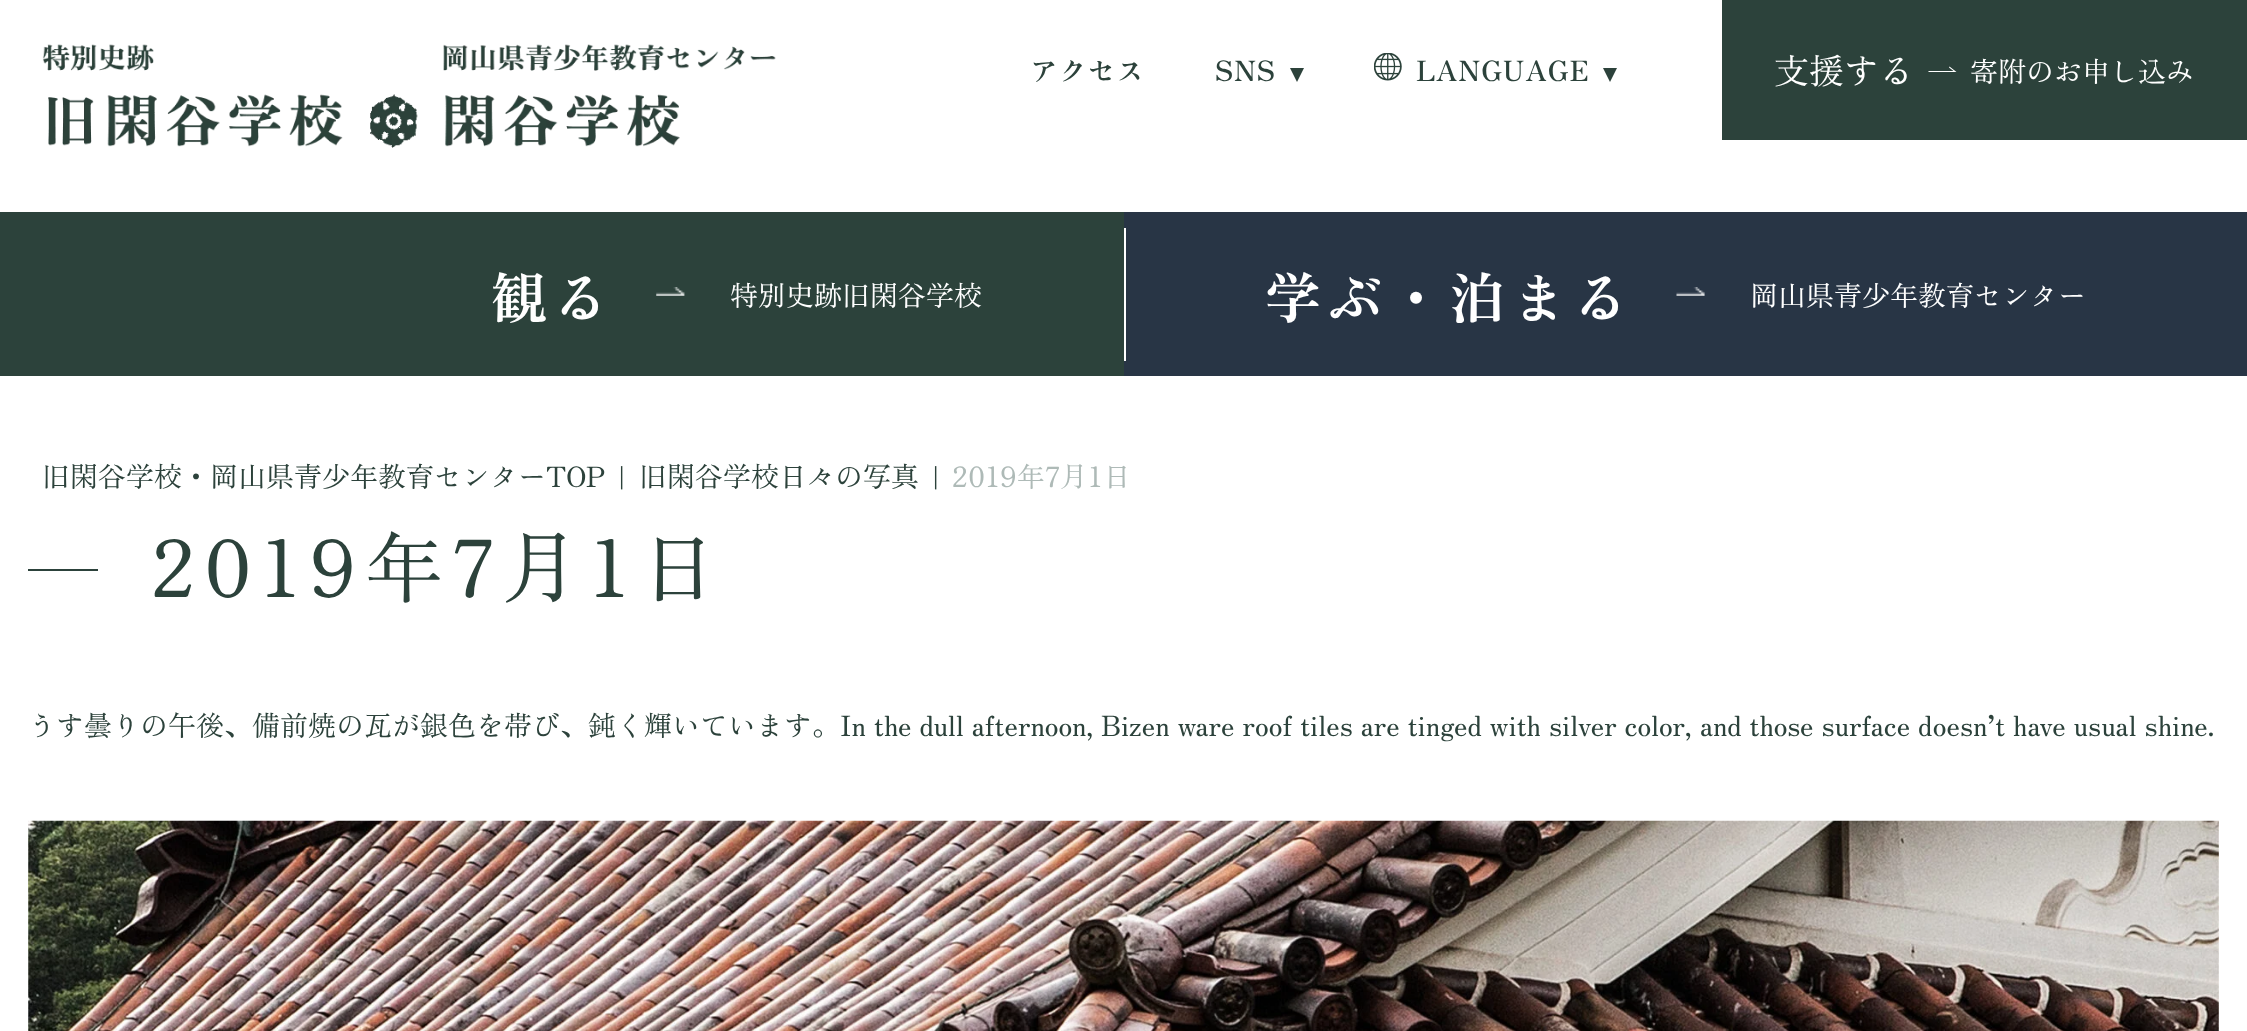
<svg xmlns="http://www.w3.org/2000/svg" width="2247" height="1031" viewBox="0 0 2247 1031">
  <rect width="100%" height="100%" fill="#ffffff"/>
  <image x="42" y="44" width="734" height="104" href="img1.png"/>
  <text x="1030" y="81" font-family="Zen Old Mincho" font-size="28" font-weight="bold" letter-spacing="0.75" fill="#2c423b">アクセス</text>
  <text x="1215" y="81" font-family="Zen Old Mincho" font-size="28" font-weight="bold" letter-spacing="0.75" fill="#2c423b">SNS</text>
  <path d="M1290 68H1304L1297 82Z" fill="#2c423b"/>
  <image x="1374" y="53" width="28" height="28" href="img2.png"/>
  <text x="1416" y="81" font-family="Zen Old Mincho" font-size="28" font-weight="bold" letter-spacing="0.75" fill="#2c423b">LANGUAGE</text>
  <path d="M1603 68H1617L1610 82Z" fill="#2c423b"/>
  <rect x="1722" y="0" width="525" height="140" fill="#2c423b"/>
  <text x="1774" y="84" font-family="Zen Old Mincho" font-size="35" fill="#ffffff">支援する</text>
  <path d="M1956.5 72H1928.5V71H1953.5L1949 67.5L1949.5 66.5Z" fill="#ffffff"/>
  <text x="1970" y="82" font-family="Zen Old Mincho" font-size="28" fill="#ffffff">寄附のお申し込み</text>
  <rect x="0" y="212" width="1124" height="164" fill="#2c423b"/>
  <rect x="1124" y="212" width="1123" height="164" fill="#283545"/>
  <rect x="1124" y="228" width="2" height="133" fill="#ffffff"/>
  <text x="491" y="319" font-family="Zen Old Mincho" font-size="56" font-weight="bold" letter-spacing="5.5" fill="#ffffff">観る</text>
  <image x="656" y="287" width="29" height="9" href="img3.png"/>
  <text x="730" y="306" font-family="Zen Old Mincho" font-size="28" fill="#ffffff">特別史跡旧閑谷学校</text>
  <text x="1265" y="319" font-family="Zen Old Mincho" font-size="56" font-weight="bold" letter-spacing="5.5" fill="#ffffff">学ぶ・泊まる</text>
  <image x="1676" y="287" width="29" height="9" href="img4.png"/>
  <text x="1750" y="306" font-family="Zen Old Mincho" font-size="28" fill="#ffffff">岡山県青少年教育センター</text>
  <text x="42" y="487" font-family="Zen Old Mincho" font-size="28" fill="#2c423b">旧閑谷学校・岡山県青少年教育センターTOP</text>
  <text x="619" y="487" font-family="Zen Old Mincho" font-size="28" fill="#2c423b">|</text>
  <text x="639" y="487" font-family="Zen Old Mincho" font-size="28" fill="#2c423b">旧閑谷学校日々の写真</text>
  <text x="933" y="487" font-family="Zen Old Mincho" font-size="28" fill="#2c423b">|</text>
  <text x="952" y="487" font-family="Zen Old Mincho" font-size="28" fill="#aebab7">2019年7月1日</text>
  <rect x="28" y="569" width="70" height="2" fill="#2c423b"/>
  <text x="151" y="597" font-family="Zen Old Mincho" font-size="78.75" letter-spacing="7.9" fill="#2c423b">2019年7月1日</text>
  <text x="28" y="736" font-family="Zen Old Mincho" font-size="28" fill="#2c423b">うす曇りの午後、備前焼の瓦が銀色を帯び、鈍く輝いています。In the dull afternoon, Bizen ware roof tiles are tinged with silver color, and those surface doesn’t have usual shine.</text>
  <image x="28" y="820" width="2191" height="211" href="img5.png"/>
</svg>
